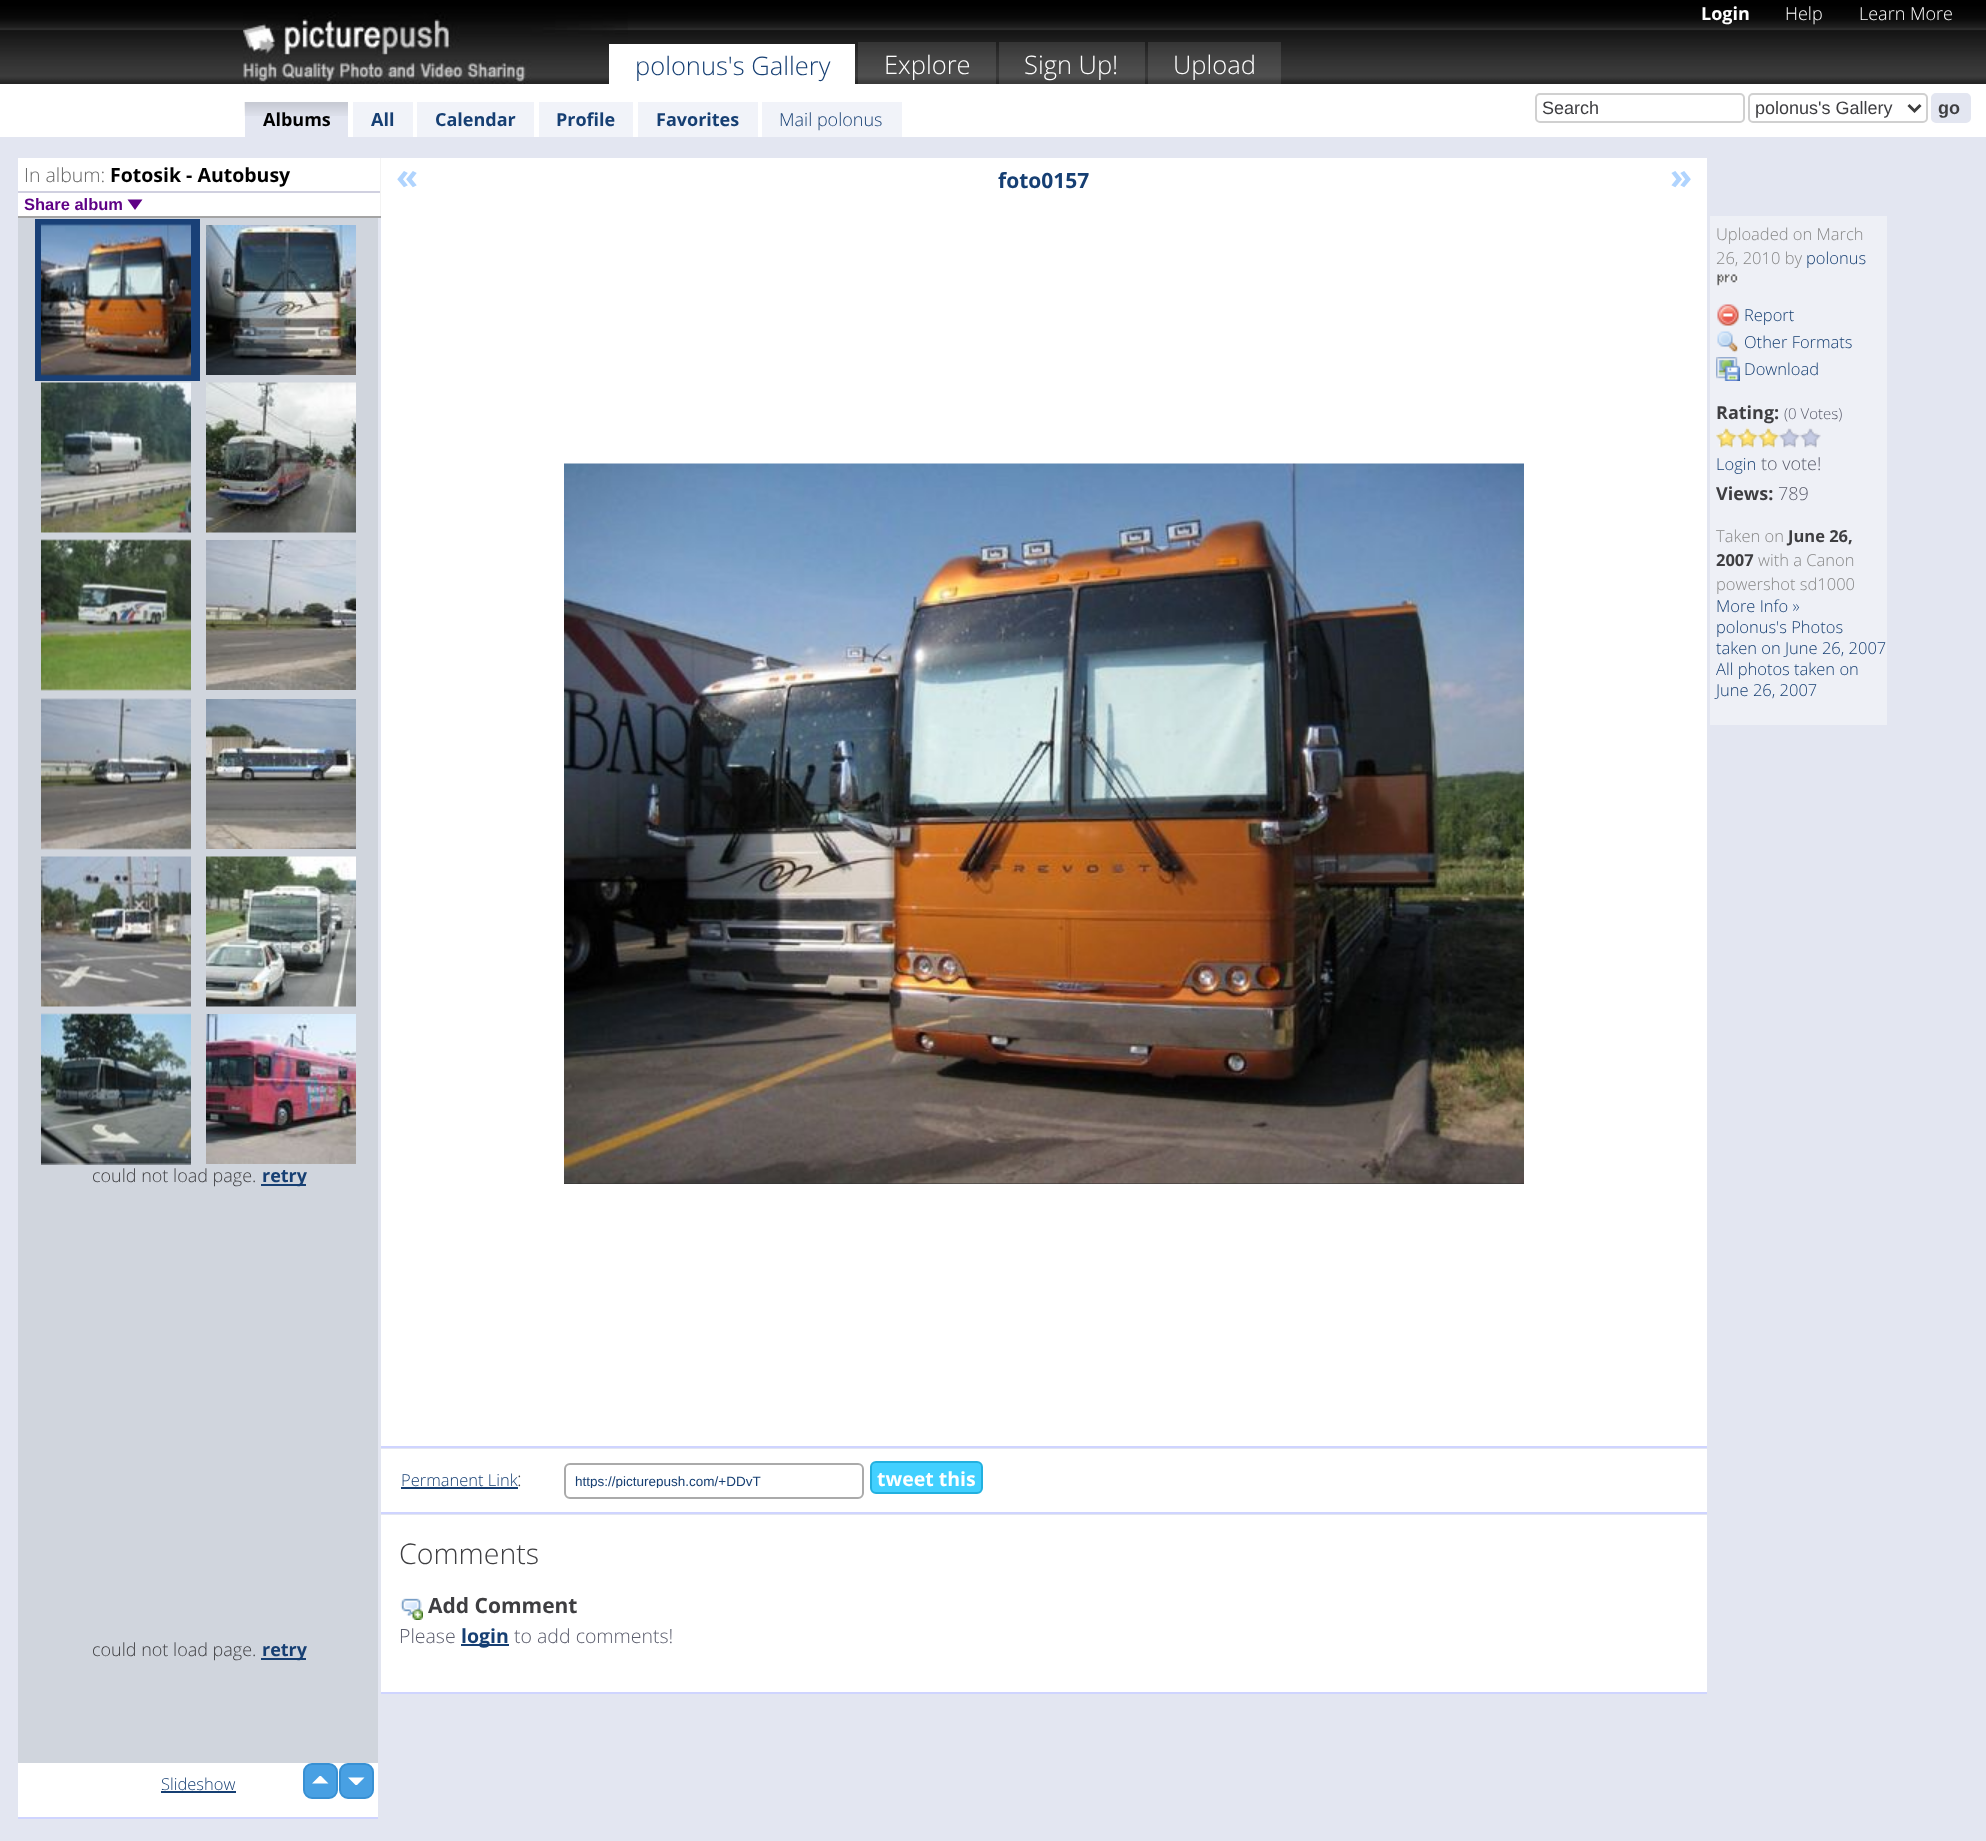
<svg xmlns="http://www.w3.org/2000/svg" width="1986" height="1841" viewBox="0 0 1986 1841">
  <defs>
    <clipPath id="clip1"><rect x="575" y="1473" width="279" height="15"/></clipPath>
  </defs>
  <rect width="100%" height="100%" fill="#e3e6f1"/>
  <image x="0" y="0" width="1986" height="84" href="img1.png"/>
  <image x="243" y="12" width="385" height="72" href="img2.png"/>
  <rect x="609" y="44" width="246" height="40" fill="#ffffff"/>
  <text x="635" y="75" font-family="Open Sans" font-size="25.5" font-weight="300" fill="#163f73">polonus's Gallery</text>
  <rect x="858" y="42" width="138" height="42" fill="#ffffff" fill-opacity="0.1"/>
  <text x="884" y="74" font-family="Open Sans" font-size="25.5" font-weight="300" fill="#ffffff">Explore</text>
  <rect x="999" y="42" width="146" height="42" fill="#ffffff" fill-opacity="0.1"/>
  <text x="1024" y="74" font-family="Open Sans" font-size="25.5" font-weight="300" fill="#ffffff">Sign Up!</text>
  <rect x="1148" y="42" width="133" height="42" fill="#ffffff" fill-opacity="0.1"/>
  <text x="1173" y="74" font-family="Open Sans" font-size="25.5" font-weight="300" fill="#ffffff">Upload</text>
  <text x="1701" y="20" font-family="Open Sans" font-size="18" font-weight="bold" fill="#ffffff">Login</text>
  <text x="1785" y="20" font-family="Open Sans" font-size="18" font-weight="300" fill="#ffffff">Help</text>
  <text x="1859" y="20" font-family="Open Sans" font-size="18" font-weight="300" fill="#ffffff">Learn More</text>
  <rect x="0" y="84" width="1986" height="53" fill="#ffffff"/>
  <rect x="1536" y="94" width="208" height="28" rx="4" fill="none" stroke="#d0d0d0" stroke-width="2"/>
  <text x="1542" y="114" font-family="Liberation Sans" font-size="18" fill="#3e3e41">Search</text>
  <rect x="1749" y="94" width="178" height="28" rx="4" fill="none" stroke="#d0d0d0" stroke-width="2"/>
  <path d="M1908.5 105L1914.5 111L1920.5 105" fill="none" stroke="#3e3e3e" stroke-width="3"/>
  <text x="1755" y="114" font-family="Liberation Sans" font-size="18" fill="#3e3e41">polonus's Gallery</text>
  <rect x="1932" y="94" width="38" height="28" rx="4" fill="#e3e6f1" stroke="#e3e6f1" stroke-width="2"/>
  <text x="1938" y="114" font-family="Liberation Sans" font-size="18" font-weight="bold" fill="#3e3e41">go</text>
  <rect x="245" y="102" width="103" height="35" fill="#e3e6f1"/>
  <image x="244" y="102" width="104" height="14" href="img3.png"/>
  <text x="263" y="126" font-family="Open Sans" font-size="18" font-weight="bold" fill="#000000">Albums</text>
  <rect x="353" y="102" width="60" height="35" fill="#f1f3f9"/>
  <text x="371" y="126" font-family="Open Sans" font-size="18" font-weight="bold" fill="#163f73">All</text>
  <rect x="417" y="102" width="117" height="35" fill="#f1f3f9"/>
  <text x="435" y="126" font-family="Open Sans" font-size="18" font-weight="bold" fill="#163f73">Calendar</text>
  <rect x="539" y="102" width="94" height="35" fill="#f1f3f9"/>
  <text x="556" y="126" font-family="Open Sans" font-size="18" font-weight="bold" fill="#163f73">Profile</text>
  <rect x="638" y="102" width="120" height="35" fill="#f1f3f9"/>
  <text x="656" y="126" font-family="Open Sans" font-size="18" font-weight="bold" fill="#163f73">Favorites</text>
  <rect x="762" y="102" width="140" height="35" fill="#f1f3f9"/>
  <text x="779" y="126" font-family="Open Sans" font-size="18" font-weight="300" fill="#163f73">Mail polonus</text>
  <rect x="18" y="158" width="362" height="58" fill="#ffffff"/>
  <rect x="380" y="158" width="1" height="60" fill="#f3f3f3"/>
  <rect x="18" y="216" width="363" height="2" fill="#a4a4a4"/>
  <text x="24" y="182" font-family="Open Sans" font-size="19.5" font-weight="300" fill="#666666">In album:</text>
  <text x="110" y="182" font-family="Open Sans" font-size="19.5" font-weight="bold" fill="#000000">Fotosik - Autobusy</text>
  <rect x="18" y="191" width="362" height="2" fill="#d0d0e0"/>
  <text x="24" y="210" font-family="Liberation Sans" font-size="16.5" font-weight="bold" fill="#5e0085">Share album</text>
  <path d="M127.5 199.5H142.5L135 210Z" fill="#5e0085"/>
  <rect x="18" y="218" width="360" height="1545" fill="#d0d5dd"/>
  <rect x="18" y="1817" width="360" height="2" fill="#cfd4ff"/>
  <rect x="35" y="219" width="165" height="162" fill="#194077"/>
  <image x="41" y="224" width="150" height="152" href="img4.png"/>
  <image x="206" y="225" width="150" height="150" href="img5.png"/>
  <image x="41" y="382" width="150" height="151" href="img6.png"/>
  <image x="206" y="382" width="150" height="151" href="img7.png"/>
  <image x="41" y="539" width="150" height="152" href="img8.png"/>
  <image x="206" y="540" width="150" height="150" href="img9.png"/>
  <image x="41" y="698" width="150" height="152" href="img10.png"/>
  <image x="206" y="699" width="150" height="150" href="img11.png"/>
  <image x="41" y="856" width="150" height="151" href="img12.png"/>
  <image x="206" y="856" width="150" height="151" href="img13.png"/>
  <image x="41" y="1013" width="150" height="152" href="img14.png"/>
  <image x="206" y="1014" width="150" height="150" href="img15.png"/>
  <text x="92" y="1182" font-family="Open Sans" font-size="18" font-weight="300" fill="#3e3e41">could not load page.</text>
  <rect x="261" y="1184" width="45" height="2" fill="#163f73"/>
  <text x="262" y="1182" font-family="Open Sans" font-size="18" font-weight="bold" fill="#163f73">retry</text>
  <text x="92" y="1656" font-family="Open Sans" font-size="18" font-weight="300" fill="#3e3e41">could not load page.</text>
  <rect x="261" y="1658" width="45" height="2" fill="#163f73"/>
  <text x="262" y="1656" font-family="Open Sans" font-size="18" font-weight="bold" fill="#163f73">retry</text>
  <rect x="18" y="1763" width="360" height="54" fill="#ffffff"/>
  <rect x="304" y="1764" width="33" height="34" rx="8" fill="#48a0e3" stroke="#3890d3" stroke-width="2"/>
  <rect x="340" y="1764" width="33" height="34" rx="8" fill="#48a0e3" stroke="#3890d3" stroke-width="2"/>
  <path d="M328.5 1783.5H312L319.5 1776H321ZM348 1777.5H364.5L357 1785H355.5Z" fill="#ffffff"/>
  <text x="161" y="1790" font-family="Open Sans" font-size="16.5" font-weight="300" fill="#163f73">Slideshow</text>
  <rect x="161" y="1791" width="75" height="2" fill="#163f73"/>
  <rect x="381" y="158" width="1326" height="1288" fill="#ffffff"/>
  <rect x="381" y="1446" width="1326" height="2" fill="#cfd4ff"/>
  <text x="396" y="189" font-family="Open Sans" font-size="36" font-weight="bold" fill="#b0d4fe">«</text>
  <text x="998" y="188" font-family="Open Sans" font-size="21" font-weight="bold" fill="#163f73">foto0157</text>
  <text x="1670" y="189" font-family="Open Sans" font-size="36" font-weight="bold" fill="#b0d4fe">»</text>
  <rect x="564" y="1183" width="960" height="1" fill="#333333"/>
  <image x="564" y="463" width="960" height="721" href="img16.png"/>
  <rect x="1710" y="216" width="177" height="509" fill="#eef0f6"/>
  <text x="1716" y="240" font-family="Open Sans" font-size="16.5" font-weight="300" fill="#888888">Uploaded on March</text>
  <text x="1716" y="264" font-family="Open Sans" font-size="16.5" font-weight="300" fill="#888888">26, 2010 by</text>
  <text x="1806" y="264" font-family="Open Sans" font-size="16.5" font-weight="300" fill="#163f73">polonus</text>
  <image x="1717" y="274" width="22" height="12" href="img17.png"/>
  <image x="1717" y="304" width="22" height="22" href="img18.png"/>
  <text x="1744" y="321" font-family="Open Sans" font-size="16.5" font-weight="300" fill="#163f73">Report</text>
  <image x="1717" y="331" width="21" height="22" href="img19.png"/>
  <text x="1744" y="348" font-family="Open Sans" font-size="16.5" font-weight="300" fill="#163f73">Other Formats</text>
  <image x="1716" y="357" width="24" height="24" href="img20.png"/>
  <text x="1744" y="375" font-family="Open Sans" font-size="16.5" font-weight="300" fill="#163f73">Download</text>
  <text x="1716" y="419" font-family="Open Sans" font-size="18" font-weight="bold" fill="#3e3e41">Rating:</text>
  <text x="1784" y="419" font-family="Open Sans" font-size="15" font-weight="300" fill="#5a5c6c">(0 Votes)</text>
  <image x="1716" y="427" width="21" height="21" href="img21.png"/>
  <image x="1737" y="427" width="21" height="21" href="img21.png"/>
  <image x="1758" y="427" width="21" height="21" href="img21.png"/>
  <image x="1779" y="428" width="21" height="20" href="img22.png"/>
  <image x="1800" y="428" width="21" height="20" href="img23.png"/>
  <text x="1716" y="470" font-family="Open Sans" font-size="16.5" font-weight="300" fill="#163f73">Login</text>
  <text x="1761" y="470" font-family="Open Sans" font-size="18" font-weight="300" fill="#5a5c6c">to vote!</text>
  <text x="1716" y="500" font-family="Open Sans" font-size="18" font-weight="bold" fill="#3e3e41">Views:</text>
  <text x="1778" y="500" font-family="Open Sans" font-size="18" font-weight="300" fill="#5a5c6c">789</text>
  <text x="1716" y="542" font-family="Open Sans" font-size="16.5" font-weight="300" fill="#888888">Taken on</text>
  <text x="1788" y="542" font-family="Open Sans" font-size="16.5" font-weight="bold" fill="#3e3e41">June 26,</text>
  <text x="1716" y="566" font-family="Open Sans" font-size="16.5" font-weight="bold" fill="#3e3e41">2007</text>
  <text x="1758" y="566" font-family="Open Sans" font-size="16.5" font-weight="300" fill="#888888">with a Canon</text>
  <text x="1716" y="590" font-family="Open Sans" font-size="16.5" font-weight="300" fill="#888888">powershot sd1000</text>
  <text x="1716" y="612" font-family="Open Sans" font-size="16.5" font-weight="300" fill="#163f73">More Info »</text>
  <text x="1716" y="633" font-family="Open Sans" font-size="16.5" font-weight="300" fill="#163f73">polonus's Photos</text>
  <text x="1716" y="654" font-family="Open Sans" font-size="16.5" font-weight="300" fill="#163f73">taken on June 26, 2007</text>
  <text x="1716" y="675" font-family="Open Sans" font-size="16.5" font-weight="300" fill="#163f73">All photos taken on</text>
  <text x="1716" y="696" font-family="Open Sans" font-size="16.5" font-weight="300" fill="#163f73">June 26, 2007</text>
  <rect x="381" y="1449" width="1326" height="63" fill="#ffffff"/>
  <rect x="381" y="1512" width="1326" height="2" fill="#cfd4ff"/>
  <text x="401" y="1486" font-family="Open Sans" font-size="16.5" font-weight="300" fill="#163f73">Permanent Link</text>
  <rect x="401" y="1487" width="117" height="2" fill="#163f73"/>
  <text x="517" y="1486" font-family="Open Sans" font-size="19.5" font-weight="300" fill="#3e3e41">:</text>
  <rect x="565" y="1464" width="298" height="34" rx="5" fill="none" stroke="#aaaaaa" stroke-width="2"/>
  <g clip-path="url(#clip1)">
    <text x="575" y="1486" font-family="Liberation Sans" font-size="13.5" fill="#163f73">https://picturepush.com/+DDvT</text>
  </g>
  <rect x="871" y="1462" width="111" height="31" rx="5" fill="#42d0ff" stroke="#22b0df" stroke-width="2"/>
  <text x="877" y="1486" font-family="Open Sans" font-size="19.5" font-weight="bold" fill="#ffffff">tweet this</text>
  <rect x="381" y="1515" width="1326" height="177" fill="#ffffff"/>
  <rect x="381" y="1692" width="1326" height="2" fill="#cfd4ff"/>
  <text x="399" y="1564" font-family="Open Sans" font-size="28.5" font-weight="300" fill="#3e3e41">Comments</text>
  <image x="400" y="1598" width="23" height="22" href="img24.png"/>
  <text x="428" y="1613" font-family="Open Sans" font-size="21" font-weight="bold" fill="#3e3e41">Add Comment</text>
  <text x="399" y="1643" font-family="Open Sans" font-size="19.5" font-weight="300" fill="#5a5c6c">Please</text>
  <rect x="461" y="1644" width="48" height="2" fill="#163f73"/>
  <text x="461" y="1643" font-family="Open Sans" font-size="19.5" font-weight="bold" fill="#163f73">login</text>
  <text x="514" y="1643" font-family="Open Sans" font-size="19.5" font-weight="300" fill="#5a5c6c">to add comments!</text>
</svg>
